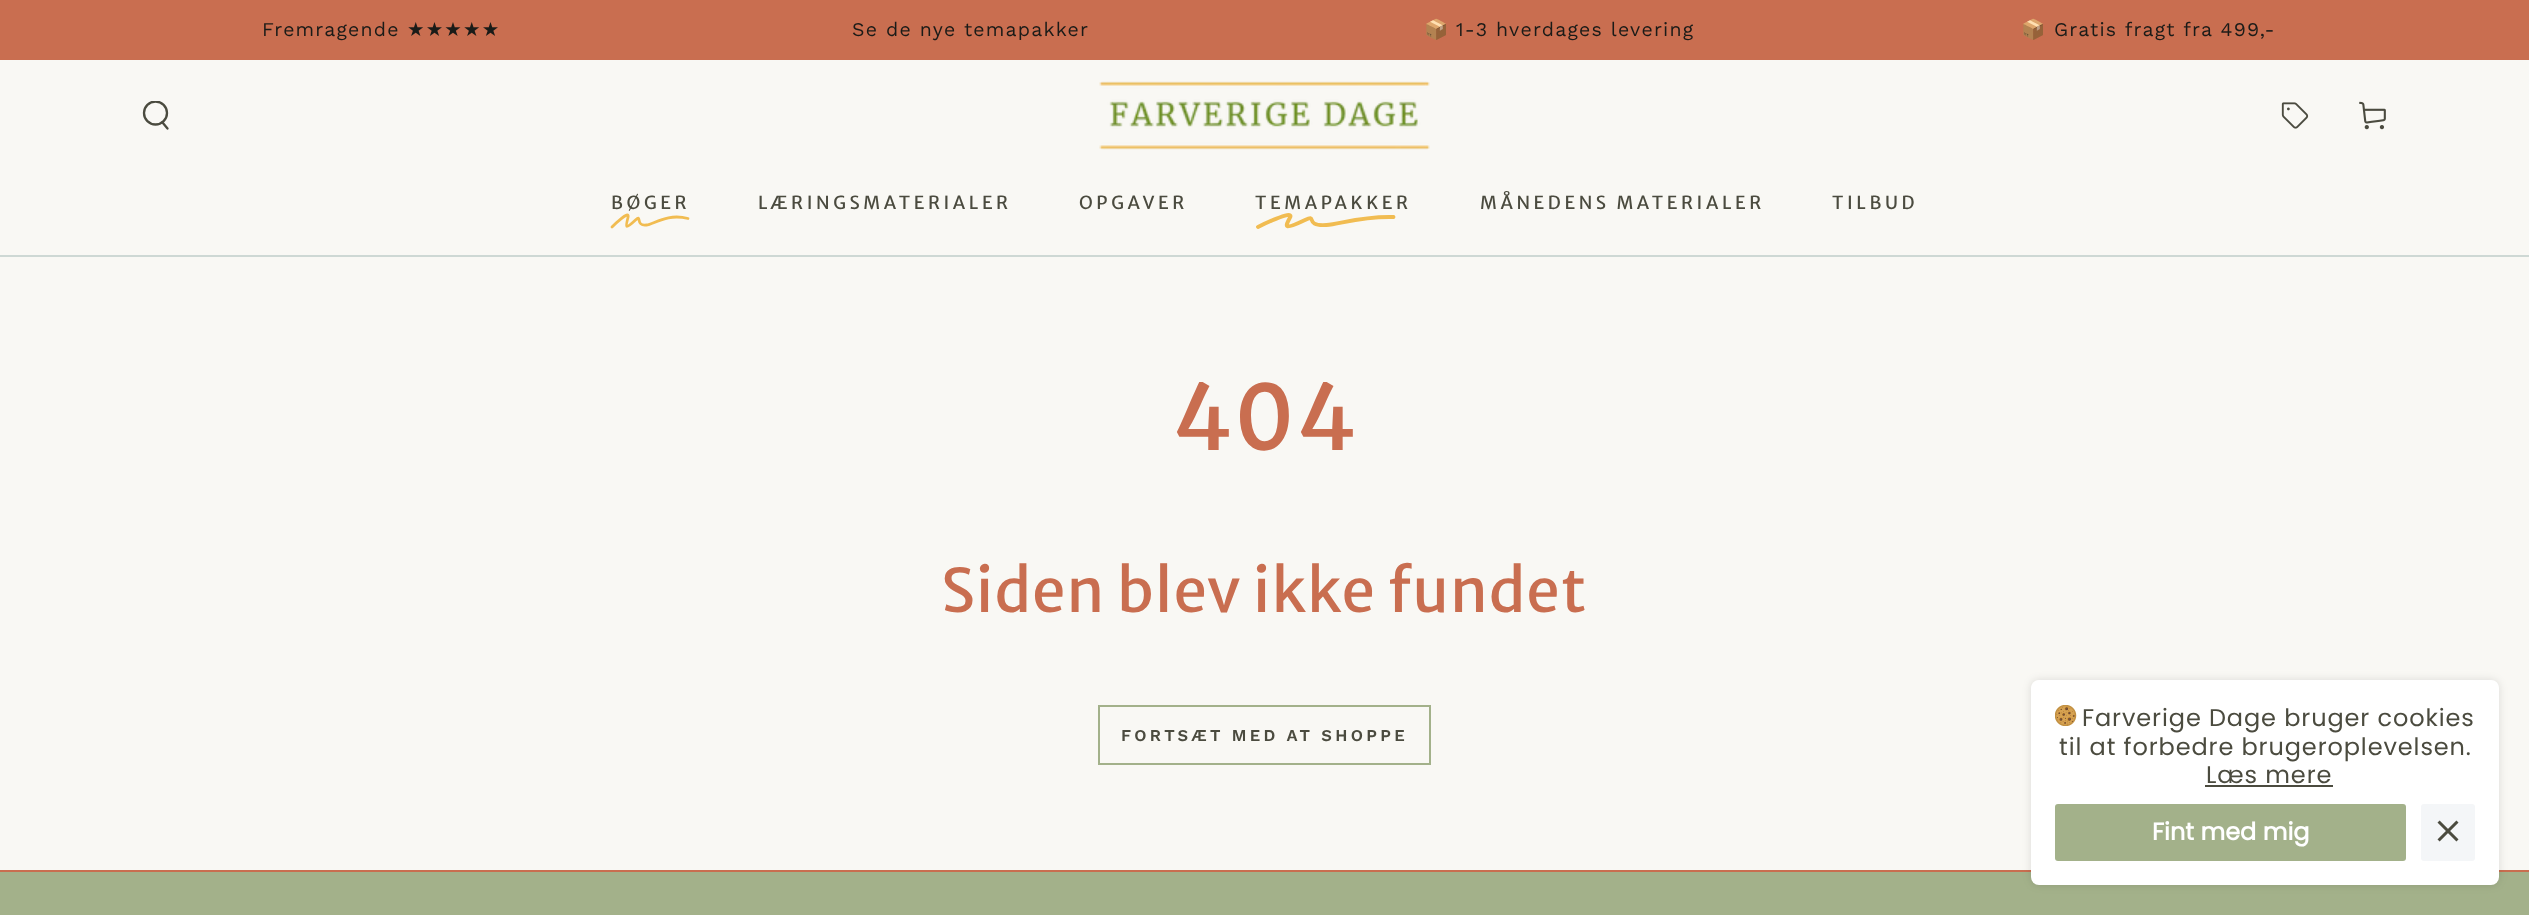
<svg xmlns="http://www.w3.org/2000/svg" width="2529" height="915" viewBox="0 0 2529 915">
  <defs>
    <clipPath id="clip1"><rect x="141" y="101" width="30" height="30"/></clipPath>
    <clipPath id="clip2"><path d="M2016 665H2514V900H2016ZM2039 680H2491C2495.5 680 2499 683.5 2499 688V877C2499 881.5 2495.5 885 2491 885H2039C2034.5 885 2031 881.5 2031 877V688C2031 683.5 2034.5 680 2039 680Z" clip-rule="evenodd"/></clipPath>
    <filter id="blur1" x="-50%" y="-200%" width="200%" height="500%"><feGaussianBlur stdDeviation="4.5"/></filter>
  </defs>
  <rect width="100%" height="100%" fill="#f9f8f4"/>
  <rect x="0" y="0" width="2529" height="60" fill="#c96e50"/>
  <text x="262" y="36" font-family="Work Sans" font-size="19.5" letter-spacing="1.2" fill="#1a1b18">Fremragende</text>
  <text x="407" y="36" font-family="DejaVu Sans" font-size="19.5" letter-spacing="1.2" fill="#1a1b18">★★★★★</text>
  <text x="852" y="36" font-family="Work Sans" font-size="19.5" letter-spacing="1.2" fill="#1a1b18">Se de nye temapakker</text>
  <text x="1424" y="36" font-family="Noto Color Emoji" font-size="19.5" letter-spacing="1.2" fill="#1a1b18">📦</text>
  <text x="1456" y="36" font-family="Work Sans" font-size="19.5" letter-spacing="1.2" fill="#1a1b18">1-3 hverdages levering</text>
  <text x="2021" y="36" font-family="Noto Color Emoji" font-size="19.5" letter-spacing="1.2" fill="#1a1b18">📦</text>
  <text x="2054" y="36" font-family="Work Sans" font-size="19.5" letter-spacing="1.2" fill="#1a1b18">Gratis fragt fra 499,-</text>
  <rect x="0" y="255" width="2529" height="2" fill="#ced8d4"/>
  <g clip-path="url(#clip1)">
    <circle cx="155.5" cy="113" r="11.5" fill="none" stroke="#4b4b3f" stroke-width="2.3"/>
  </g>
  <path d="M162.5 122.5L167.5 128.5" fill="none" stroke="#4b4b3f" stroke-width="2.3" stroke-linecap="round"/>
  <image x="1099" y="81" width="331" height="69" href="img1.png"/>
  <image x="2281" y="102" width="28" height="27" href="img2.png"/>
  <image x="2359" y="101" width="27" height="29" href="img3.png"/>
  <text x="611" y="209" font-family="Merriweather Sans" font-size="18" letter-spacing="3.6" fill="#4b4b3f">BØGER</text>
  <path d="M612 227C612 227 630.5 208.5 628 217.5C625.5 227 624.5 230.5 635.5 220C642.5 213.5 634.5 226.5 646.5 225C653.5 224.5 667 213 688 218.5" fill="none" stroke="#f1bc51" stroke-width="2.8" stroke-linecap="round"/>
  <text x="758" y="209" font-family="Merriweather Sans" font-size="18" letter-spacing="3.6" fill="#4b4b3f">LÆRINGSMATERIALER</text>
  <text x="1079" y="209" font-family="Merriweather Sans" font-size="18" letter-spacing="3.6" fill="#4b4b3f">OPGAVER</text>
  <text x="1255" y="209" font-family="Merriweather Sans" font-size="18" letter-spacing="3.6" fill="#4b4b3f">TEMAPAKKER</text>
  <path d="M1258 227C1258 227 1295 208.5 1290 217.5C1285 227 1283 230.5 1305 220C1318.5 213.5 1303 226.5 1326.5 225C1339 224.5 1360.5 216 1393.5 217" fill="none" stroke="#f1bc51" stroke-width="3.9" stroke-linecap="round"/>
  <text x="1480" y="209" font-family="Merriweather Sans" font-size="18" letter-spacing="3.6" fill="#4b4b3f">MÅNEDENS MATERIALER</text>
  <text x="1832" y="209" font-family="Merriweather Sans" font-size="18" letter-spacing="3.6" fill="#4b4b3f">TILBUD</text>
  <text x="1172" y="450" font-family="Merriweather Sans" font-size="90" letter-spacing="0.9" fill="#c96e50">404</text>
  <text x="941" y="612" font-family="Merriweather Sans" font-size="60" letter-spacing="0.9" fill="#c96e50">Siden blev ikke fundet</text>
  <rect x="1099" y="706" width="331" height="58" fill="none" stroke="#a3b18a" stroke-width="2"/>
  <text x="1121" y="741" font-family="Work Sans" font-size="16.5" font-weight="600" letter-spacing="3.3" fill="#4b4b3f">FORTSÆT MED AT SHOPPE</text>
  <rect x="0" y="872" width="2529" height="43" fill="#a3b18a"/>
  <rect x="0" y="870" width="2529" height="2" fill="#c96e50"/>
  <rect x="2031" y="680" width="468" height="205" rx="8" fill="#ffffff"/>
  <g clip-path="url(#clip2)">
    <rect x="2031" y="680" width="468" height="205" rx="8" fill="#000000" fill-opacity="0.12" filter="url(#blur1)"/>
  </g>
  <image x="2055" y="705" width="22" height="21" href="img4.png"/>
  <text x="2082" y="726" font-family="Poppins" font-size="24" letter-spacing="0.9" fill="#4b4b3f">Farverige Dage bruger cookies</text>
  <text x="2059" y="755" font-family="Poppins" font-size="24" letter-spacing="0.9" fill="#4b4b3f">til at forbedre brugeroplevelsen.</text>
  <text x="2206" y="783" font-family="Poppins" font-size="24" letter-spacing="0.9" fill="#4b4b3f">Læs mere</text>
  <rect x="2205" y="785" width="128" height="2" fill="#4b4b3f"/>
  <rect x="2055" y="804" width="351" height="57" rx="3" fill="#a3b18a"/>
  <text x="2152" y="840" font-family="Poppins" font-size="24" font-weight="bold" fill="#ffffff">Fint med mig</text>
  <rect x="2421" y="804" width="54" height="57" rx="3" fill="#f4f6f8"/>
  <image x="2437" y="820" width="22" height="22" href="img5.png"/>
</svg>
